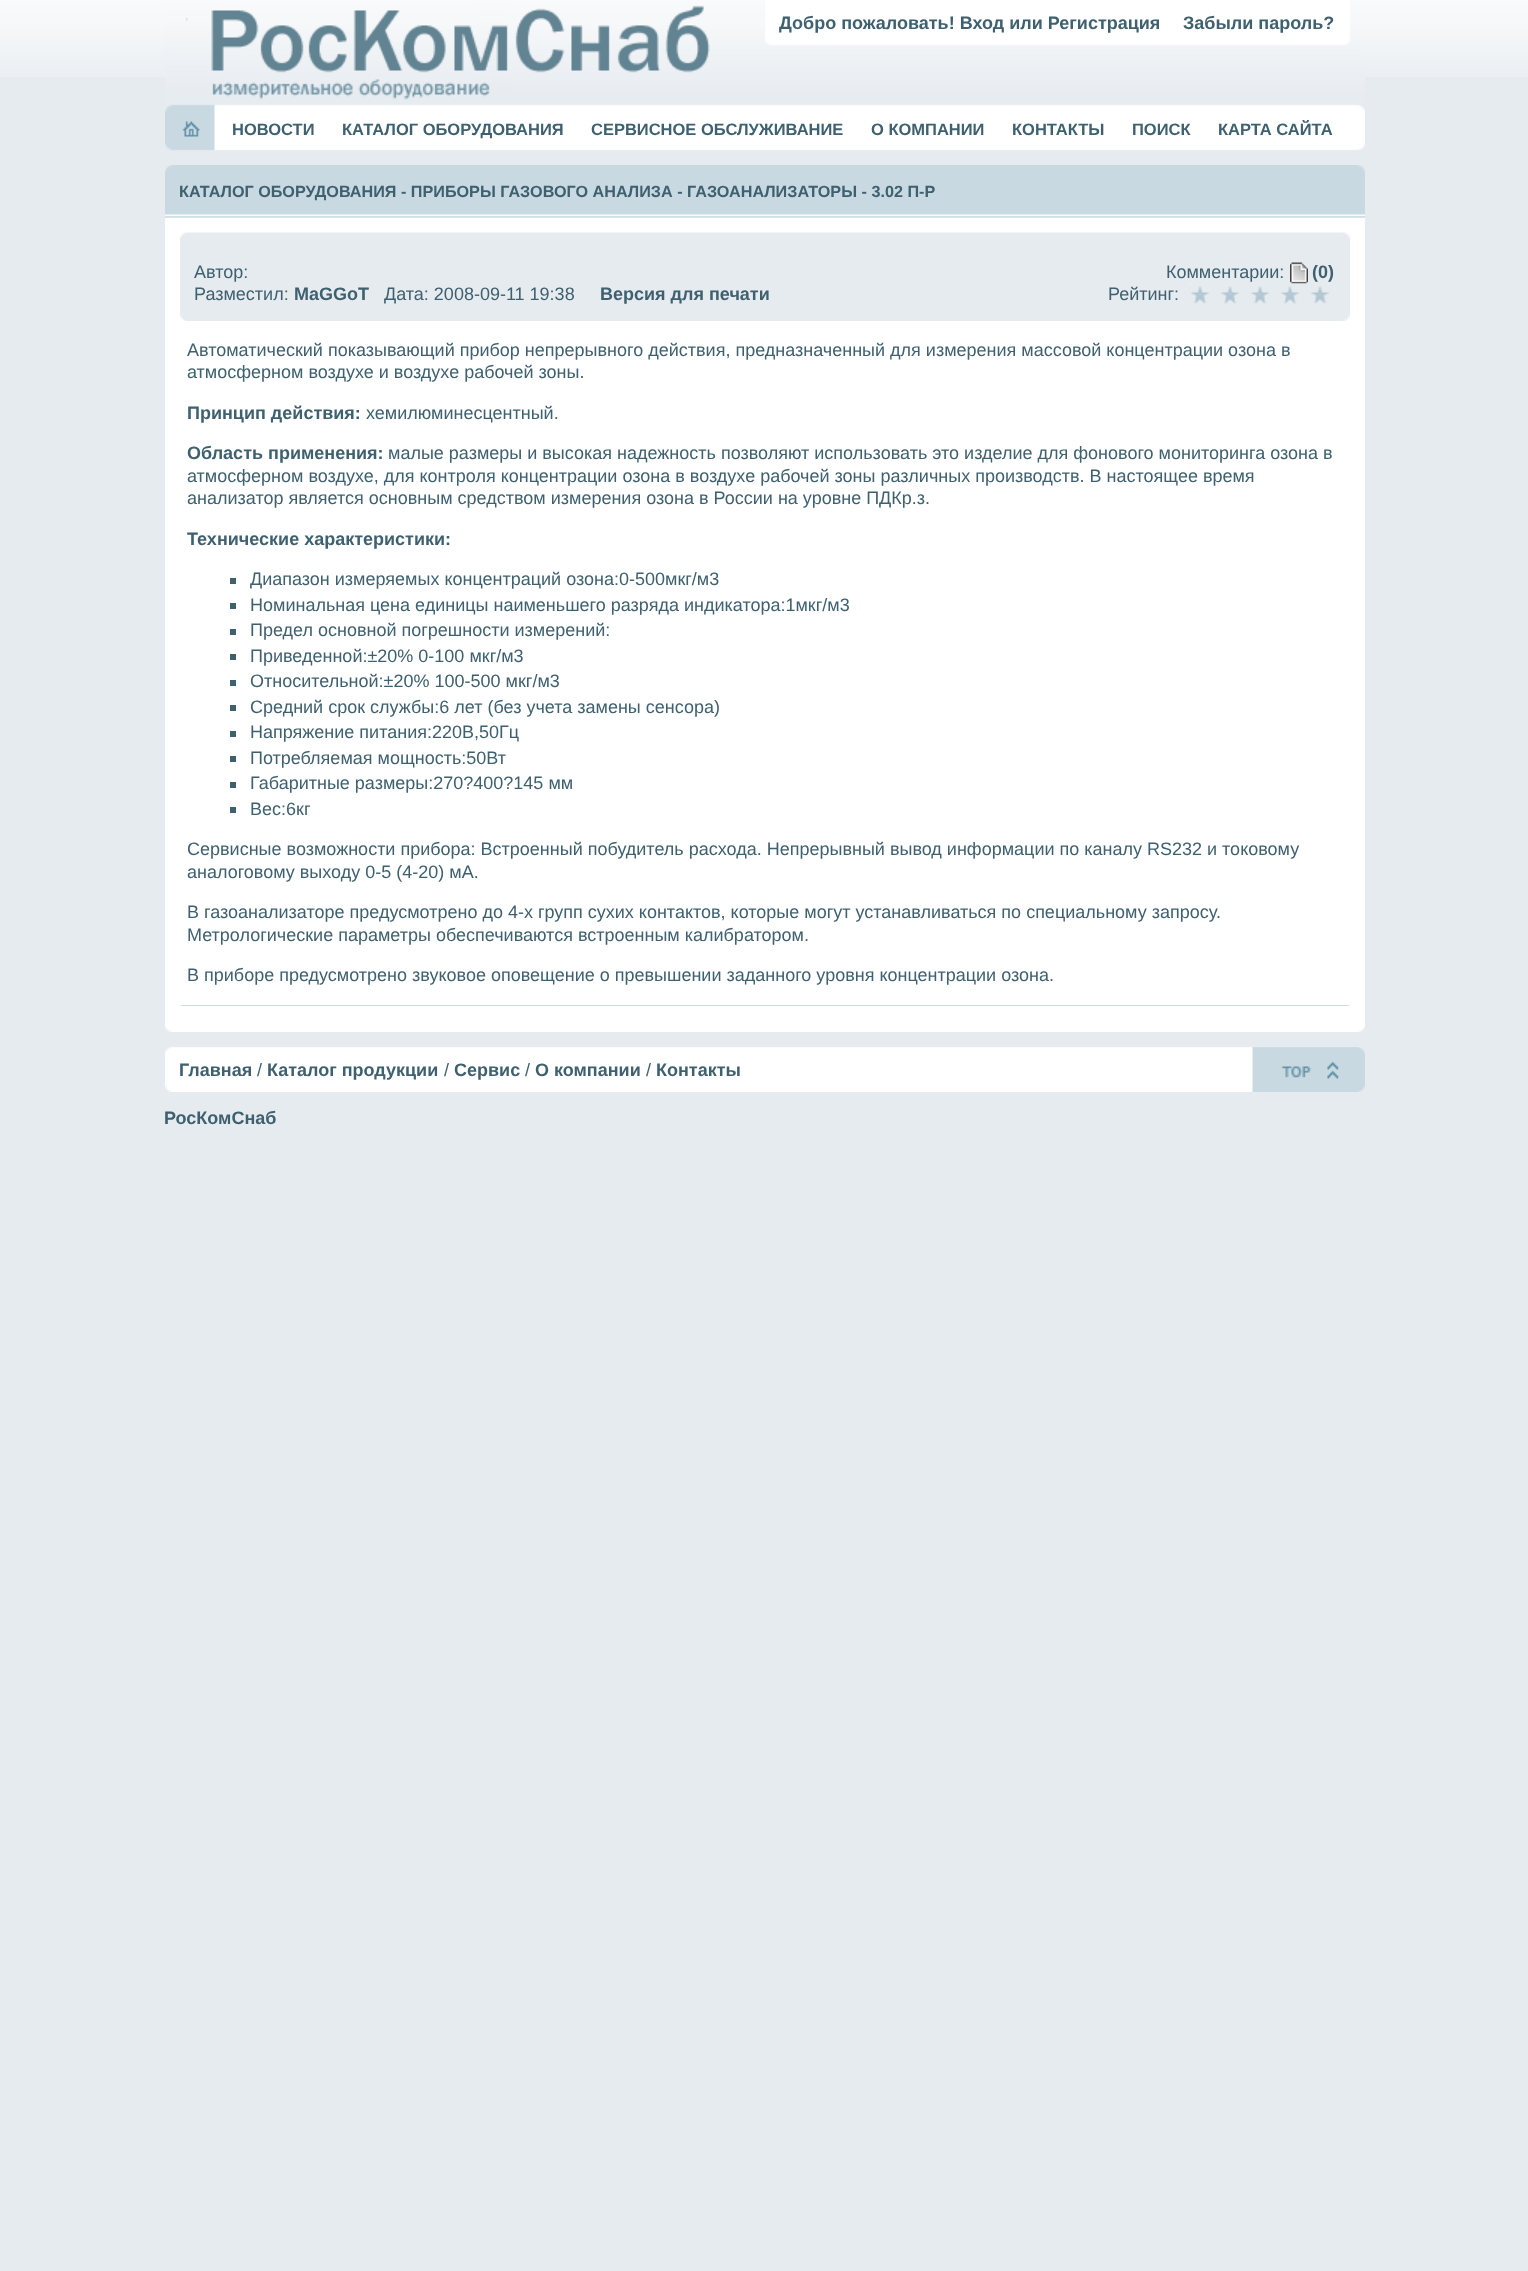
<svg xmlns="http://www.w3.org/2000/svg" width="1528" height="2271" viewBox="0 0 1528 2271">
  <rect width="100%" height="100%" fill="#e6ebf0"/>
  <image x="0" y="0" width="1528" height="77" href="img1.png"/>
  <image x="165" y="0" width="1200" height="151" href="img2.png"/>
  <text x="779" y="29" font-family="Liberation Sans" font-size="18" font-weight="bold" fill="#3e606f">Добро пожаловать! Вход или Регистрация</text>
  <text x="1183" y="29" font-family="Liberation Sans" font-size="18" font-weight="bold" fill="#3e606f">Забыли пароль?</text>
  <text x="232" y="135" font-family="Liberation Sans" font-size="16.5" font-weight="bold" fill="#3e606f">НОВОСТИ</text>
  <text x="342" y="135" font-family="Liberation Sans" font-size="16.5" font-weight="bold" fill="#3e606f">КАТАЛОГ ОБОРУДОВАНИЯ</text>
  <text x="591" y="135" font-family="Liberation Sans" font-size="16.5" font-weight="bold" fill="#3e606f">СЕРВИСНОЕ ОБСЛУЖИВАНИЕ</text>
  <text x="871" y="135" font-family="Liberation Sans" font-size="16.5" font-weight="bold" fill="#3e606f">О КОМПАНИИ</text>
  <text x="1012" y="135" font-family="Liberation Sans" font-size="16.5" font-weight="bold" fill="#3e606f">КОНТАКТЫ</text>
  <text x="1132" y="135" font-family="Liberation Sans" font-size="16.5" font-weight="bold" fill="#3e606f">ПОИСК</text>
  <text x="1218" y="135" font-family="Liberation Sans" font-size="16.5" font-weight="bold" fill="#3e606f">КАРТА САЙТА</text>
  <image x="165" y="165" width="1200" height="53" href="img3.png"/>
  <text x="179" y="197" font-family="Liberation Sans" font-size="16.2" font-weight="bold" fill="#3e606f">КАТАЛОГ ОБОРУДОВАНИЯ - ПРИБОРЫ ГАЗОВОГО АНАЛИЗА - ГАЗОАНАЛИЗАТОРЫ - 3.02 П-Р</text>
  <rect x="165" y="218" width="1200" height="808" fill="#ffffff"/>
  <image x="165" y="1026" width="1200" height="6" href="img4.png"/>
  <rect x="180" y="238" width="1170" height="77" fill="#e6ebf0"/>
  <image x="180" y="315" width="1170" height="6" href="img5.png"/>
  <image x="180" y="232" width="1170" height="6" href="img6.png"/>
  <text x="194" y="278" font-family="Liberation Sans" font-size="18" fill="#3e606f">Автор:</text>
  <text x="1166" y="278" font-family="Liberation Sans" font-size="18" fill="#3e606f">Комментарии:</text>
  <image x="1290" y="262" width="18" height="22" href="img7.png"/>
  <text x="1312" y="278" font-family="Liberation Sans" font-size="18" font-weight="bold" fill="#3e606f">(0)</text>
  <text x="1108" y="300" font-family="Liberation Sans" font-size="18" fill="#3e606f">Рейтинг:</text>
  <image x="1185" y="283" width="150" height="24" href="img8.png"/>
  <text x="194" y="300" font-family="Liberation Sans" font-size="18" fill="#3e606f">Разместил:</text>
  <text x="294" y="300" font-family="Liberation Sans" font-size="18" font-weight="bold" fill="#3e606f">MaGGoT</text>
  <text x="384" y="300" font-family="Liberation Sans" font-size="18" fill="#3e606f">Дата: 2008-09-11 19:38</text>
  <text x="600" y="300" font-family="Liberation Sans" font-size="18" font-weight="bold" fill="#3e606f">Версия для печати</text>
  <text x="187" y="356" font-family="Liberation Sans" font-size="18" fill="#3e606f">Автоматический показывающий прибор непрерывного действия, предназначенный для измерения массовой концентрации озона в</text>
  <text x="187" y="378" font-family="Liberation Sans" font-size="18" fill="#3e606f">атмосферном воздухе и воздухе рабочей зоны.</text>
  <text x="187" y="419" font-family="Liberation Sans" font-size="18" font-weight="bold" fill="#3e606f">Принцип действия:</text>
  <text x="366" y="419" font-family="Liberation Sans" font-size="18" fill="#3e606f">хемилюминесцентный.</text>
  <text x="187" y="459" font-family="Liberation Sans" font-size="18" font-weight="bold" fill="#3e606f">Область применения:</text>
  <text x="388" y="459" font-family="Liberation Sans" font-size="18" fill="#3e606f">малые размеры и высокая надежность позволяют использовать это изделие для фонового мониторинга озона в</text>
  <text x="187" y="482" font-family="Liberation Sans" font-size="18" fill="#3e606f">атмосферном воздухе, для контроля концентрации озона в воздухе рабочей зоны различных производств. В настоящее время</text>
  <text x="187" y="504" font-family="Liberation Sans" font-size="18" fill="#3e606f">анализатор является основным средством измерения озона в России на уровне ПДКр.з.</text>
  <text x="187" y="545" font-family="Liberation Sans" font-size="18" font-weight="bold" fill="#3e606f">Технические характеристики:</text>
  <rect x="230" y="578" width="6" height="6" fill="#3e606f"/>
  <text x="250" y="585" font-family="Liberation Sans" font-size="18" fill="#3e606f">Диапазон измеряемых концентраций озона:0-500мкг/м3</text>
  <rect x="230" y="603" width="6" height="6" fill="#3e606f"/>
  <text x="250" y="611" font-family="Liberation Sans" font-size="18" fill="#3e606f">Номинальная цена единицы наименьшего разряда индикатора:1мкг/м3</text>
  <rect x="230" y="629" width="6" height="6" fill="#3e606f"/>
  <text x="250" y="636" font-family="Liberation Sans" font-size="18" fill="#3e606f">Предел основной погрешности измерений:</text>
  <rect x="230" y="654" width="6" height="6" fill="#3e606f"/>
  <text x="250" y="662" font-family="Liberation Sans" font-size="18" fill="#3e606f">Приведенной:±20% 0-100 мкг/м3</text>
  <rect x="230" y="680" width="6" height="6" fill="#3e606f"/>
  <text x="250" y="687" font-family="Liberation Sans" font-size="18" fill="#3e606f">Относительной:±20% 100-500 мкг/м3</text>
  <rect x="230" y="705" width="6" height="6" fill="#3e606f"/>
  <text x="250" y="713" font-family="Liberation Sans" font-size="18" fill="#3e606f">Средний срок службы:6 лет (без учета замены сенсора)</text>
  <rect x="230" y="731" width="6" height="6" fill="#3e606f"/>
  <text x="250" y="738" font-family="Liberation Sans" font-size="18" fill="#3e606f">Напряжение питания:220В,50Гц</text>
  <rect x="230" y="756" width="6" height="6" fill="#3e606f"/>
  <text x="250" y="764" font-family="Liberation Sans" font-size="18" fill="#3e606f">Потребляемая мощность:50Вт</text>
  <rect x="230" y="782" width="6" height="6" fill="#3e606f"/>
  <text x="250" y="789" font-family="Liberation Sans" font-size="18" fill="#3e606f">Габаритные размеры:270?400?145 мм</text>
  <rect x="230" y="807" width="6" height="6" fill="#3e606f"/>
  <text x="250" y="815" font-family="Liberation Sans" font-size="18" fill="#3e606f">Вес:6кг</text>
  <text x="187" y="855" font-family="Liberation Sans" font-size="18" fill="#3e606f">Сервисные возможности прибора: Встроенный побудитель расхода. Непрерывный вывод информации по каналу RS232 и токовому</text>
  <text x="187" y="878" font-family="Liberation Sans" font-size="18" fill="#3e606f">аналоговому выходу 0-5 (4-20) мА.</text>
  <text x="187" y="918" font-family="Liberation Sans" font-size="18" fill="#3e606f">В газоанализаторе предусмотрено до 4-х групп сухих контактов, которые могут устанавливаться по специальному запросу.</text>
  <text x="187" y="941" font-family="Liberation Sans" font-size="18" fill="#3e606f">Метрологические параметры обеспечиваются встроенным калибратором.</text>
  <text x="187" y="981" font-family="Liberation Sans" font-size="18" fill="#3e606f">В приборе предусмотрено звуковое оповещение о превышении заданного уровня концентрации озона.</text>
  <path d="M180 1005H1350L1348 1006H182Z" fill="#c8d9e2"/>
  <image x="165" y="1047" width="1200" height="45" href="img9.png"/>
  <text x="179" y="1076" font-family="Liberation Sans" font-size="18" font-weight="bold" fill="#3e606f">Главная</text>
  <text x="257" y="1076" font-family="Liberation Sans" font-size="18" fill="#3e606f">/</text>
  <text x="267" y="1076" font-family="Liberation Sans" font-size="18" font-weight="bold" fill="#3e606f">Каталог продукции</text>
  <text x="444" y="1076" font-family="Liberation Sans" font-size="18" fill="#3e606f">/</text>
  <text x="454" y="1076" font-family="Liberation Sans" font-size="18" font-weight="bold" fill="#3e606f">Сервис</text>
  <text x="525" y="1076" font-family="Liberation Sans" font-size="18" fill="#3e606f">/</text>
  <text x="535" y="1076" font-family="Liberation Sans" font-size="18" font-weight="bold" fill="#3e606f">О компании</text>
  <text x="646" y="1076" font-family="Liberation Sans" font-size="18" fill="#3e606f">/</text>
  <text x="656" y="1076" font-family="Liberation Sans" font-size="18" font-weight="bold" fill="#3e606f">Контакты</text>
  <text x="164" y="1124" font-family="Liberation Sans" font-size="18" font-weight="bold" fill="#3e606f">РосКомСнаб</text>
</svg>
